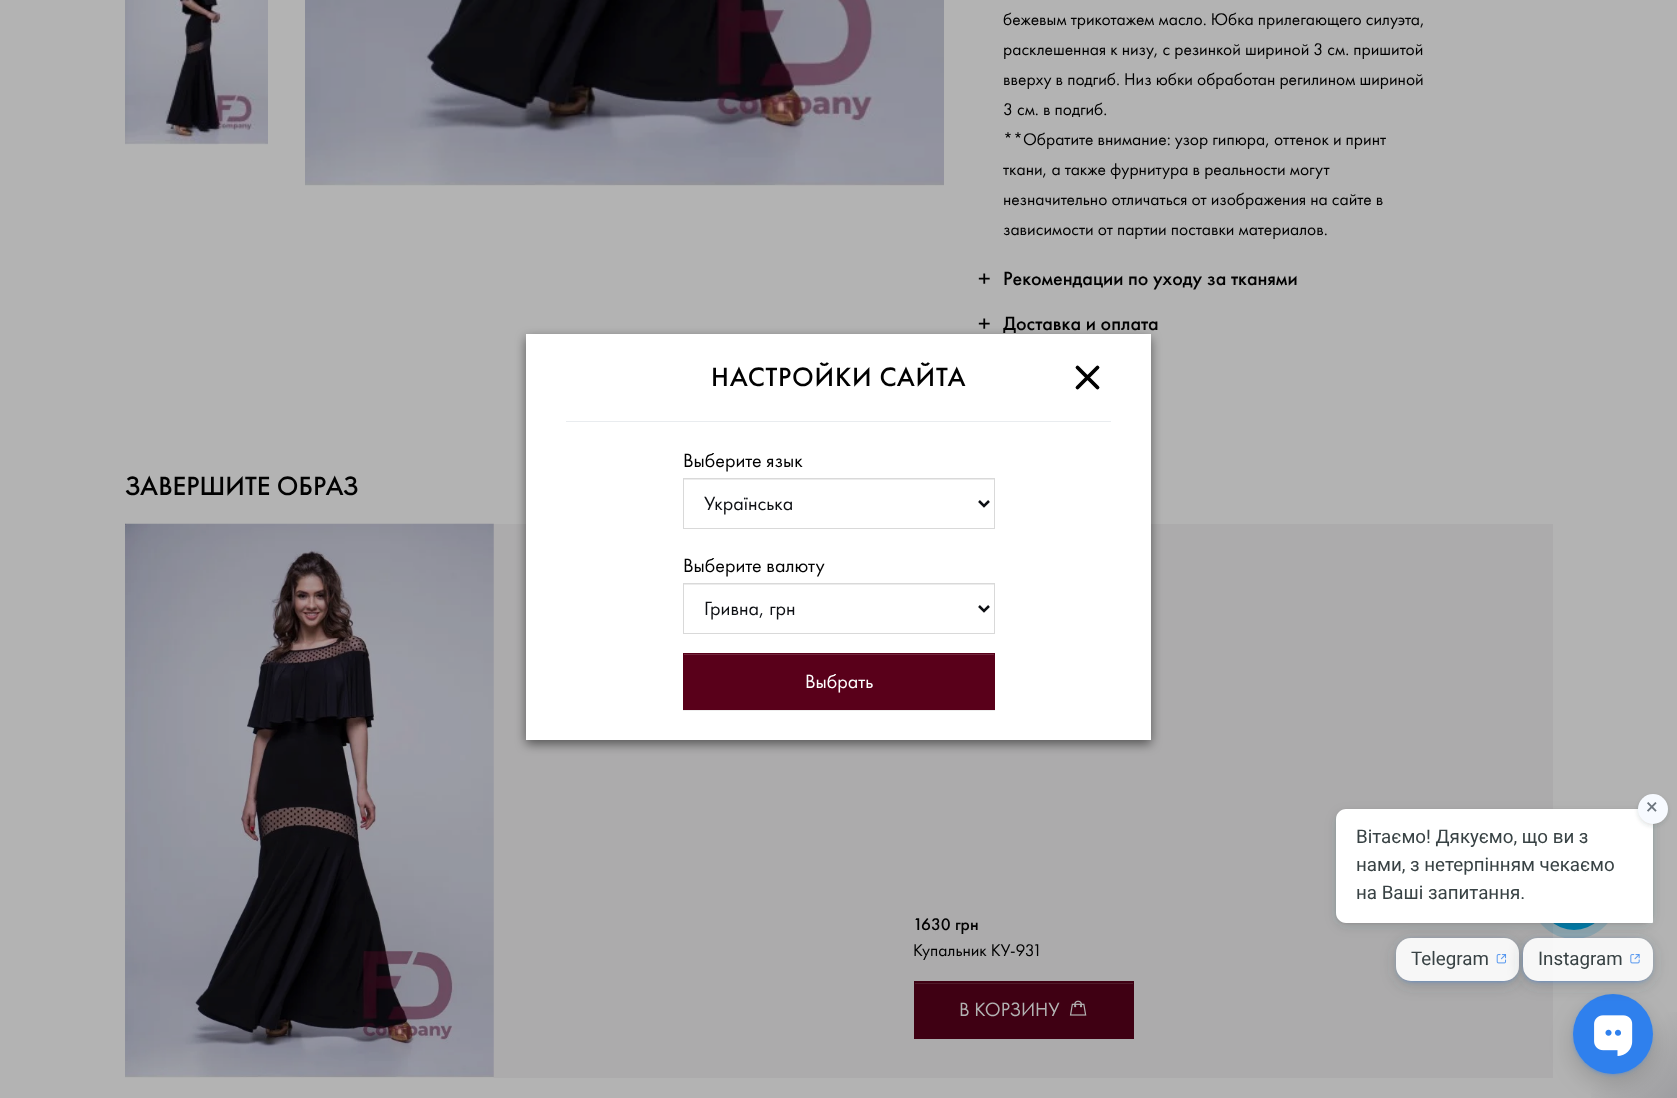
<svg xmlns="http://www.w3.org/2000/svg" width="1677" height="1098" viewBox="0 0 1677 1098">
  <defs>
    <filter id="blur1" x="-50%" y="-200%" width="200%" height="500%"><feGaussianBlur stdDeviation="5.5"/></filter>
    <filter id="blur2" x="-50%" y="-200%" width="200%" height="500%"><feGaussianBlur stdDeviation="0.5"/></filter>
    <filter id="blur3" x="-50%" y="-200%" width="200%" height="500%"><feGaussianBlur stdDeviation="6"/></filter>
    <filter id="blur4" x="-50%" y="-200%" width="200%" height="500%"><feGaussianBlur stdDeviation="1"/></filter>
    <filter id="blur5" x="-50%" y="-200%" width="200%" height="500%"><feGaussianBlur stdDeviation="2"/></filter>
    <clipPath id="clip1"><path d="M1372 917H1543V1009H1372ZM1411 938H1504C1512.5 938 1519 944.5 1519 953V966C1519 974.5 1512.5 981 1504 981H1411C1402.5 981 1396 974.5 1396 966V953C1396 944.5 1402.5 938 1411 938Z" clip-rule="evenodd"/></clipPath>
    <filter id="blur6" x="-50%" y="-200%" width="200%" height="500%"><feGaussianBlur stdDeviation="7.5"/></filter>
    <clipPath id="clip2"><path d="M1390 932H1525V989H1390ZM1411 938H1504C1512.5 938 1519 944.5 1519 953V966C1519 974.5 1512.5 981 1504 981H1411C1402.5 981 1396 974.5 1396 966V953C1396 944.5 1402.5 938 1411 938Z" clip-rule="evenodd"/></clipPath>
    <filter id="blur7" x="-50%" y="-200%" width="200%" height="500%"><feGaussianBlur stdDeviation="2.5"/></filter>
    <linearGradient id="g1" gradientUnits="userSpaceOnUse" x1="1553" y1="974" x2="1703" y2="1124"><stop offset="0.5" stop-color="#b3b3b3"/><stop offset="1" stop-color="#929297"/></linearGradient>
    <filter id="blur8" x="-50%" y="-200%" width="200%" height="500%"><feGaussianBlur stdDeviation="12.5"/></filter>
    <clipPath id="clip3"><path d="M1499 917H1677V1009H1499ZM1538 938H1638C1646.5 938 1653 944.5 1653 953V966C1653 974.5 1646.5 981 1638 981H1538C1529.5 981 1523 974.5 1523 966V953C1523 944.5 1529.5 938 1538 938Z" clip-rule="evenodd"/></clipPath>
    <clipPath id="clip4"><path d="M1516 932H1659V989H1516ZM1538 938H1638C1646.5 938 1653 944.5 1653 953V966C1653 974.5 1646.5 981 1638 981H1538C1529.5 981 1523 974.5 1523 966V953C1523 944.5 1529.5 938 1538 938Z" clip-rule="evenodd"/></clipPath>
  </defs>
  <rect width="100%" height="100%" fill="#b3b3b3"/>
  <image x="125" y="0" width="143" height="145" href="img1.png"/>
  <image x="305" y="0" width="639" height="186" href="img2.png"/>
  <text x="1003" y="25" font-family="Futura PT" font-size="17.5" fill="#010101">бежевым трикотажем масло. Юбка прилегающего силуэта,</text>
  <text x="1003" y="55" font-family="Futura PT" font-size="17.5" fill="#010101">расклешенная к низу, с резинкой шириной 3 см. пришитой</text>
  <text x="1003" y="85" font-family="Futura PT" font-size="17.5" fill="#010101">вверху в подгиб. Низ юбки обработан регилином шириной</text>
  <text x="1003" y="115" font-family="Futura PT" font-size="17.5" fill="#010101">3 см. в подгиб.</text>
  <text x="1003" y="145" font-family="Futura PT" font-size="17.5" fill="#010101">**Обратите внимание: узор гипюра, оттенок и принт</text>
  <text x="1003" y="175" font-family="Futura PT" font-size="17.5" fill="#010101">ткани, а также фурнитура в реальности могут</text>
  <text x="1003" y="205" font-family="Futura PT" font-size="17.5" fill="#010101">незначительно отличаться от изображения на сайте в</text>
  <text x="1003" y="235" font-family="Futura PT" font-size="17.5" fill="#010101">зависимости от партии поставки материалов.</text>
  <text x="978" y="287" font-family="Futura PT" font-size="25" fill="#010101">+</text>
  <text x="1003" y="285" font-family="Futura PT" font-size="20" font-weight="500" fill="#010101">Рекомендации по уходу за тканями</text>
  <text x="978" y="332" font-family="Futura PT" font-size="25" fill="#010101">+</text>
  <text x="1003" y="330" font-family="Futura PT" font-size="20" font-weight="500" fill="#010101">Доставка и оплата</text>
  <text x="125" y="495" font-family="Futura PT" font-size="27.5" font-weight="500" fill="#010101">ЗАВЕРШИТЕ ОБРАЗ</text>
  <rect x="125" y="524" width="1428" height="554" fill="#acabac"/>
  <image x="125" y="523" width="369" height="555" href="img3.png"/>
  <text x="913" y="930" font-family="Futura PT" font-size="17.5" font-weight="500" fill="#010101">1630 грн</text>
  <text x="913" y="956" font-family="Futura PT" font-size="17.5" fill="#010101">Купальник КУ-931</text>
  <rect x="914" y="981" width="220" height="58" fill="#3f0013"/>
  <rect x="915" y="983" width="218" height="1" fill="#501b2a"/>
  <text x="959" y="1016" font-family="Futura PT" font-size="20" fill="#b3b3b3">В КОРЗИНУ</text>
  <image x="1069" y="1000" width="18" height="16" href="img4.png"/>
  <rect x="526" y="338" width="625" height="406" fill="#000000" fill-opacity="0.5" filter="url(#blur1)"/>
  <rect x="526" y="334" width="625" height="406" fill="#ffffff"/>
  <rect x="566" y="421" width="545" height="1" fill="#e9ecef"/>
  <text x="711" y="386" font-family="Futura PT" font-size="27.5" font-weight="500" letter-spacing="0.8" fill="#010101">НАСТРОЙКИ САЙТА</text>
  <path d="M1077.5 367.5L1087.5 377.5M1097.5 387.5L1087.5 377.5M1087.5 377.5L1097.5 367.5M1087.5 377.5L1077.5 387.5" fill="none" stroke="#000000" stroke-width="3.8" stroke-linecap="round" stroke-linejoin="round"/>
  <text x="683" y="467" font-family="Futura PT" font-size="20" fill="#010101">Выберите язык</text>
  <rect x="684" y="479" width="310" height="1" fill="#ececec"/>
  <rect x="683.5" y="478.5" width="311" height="50" fill="none" stroke="#d9d9d9"/>
  <path d="M979 501L984 506L989 501" fill="none" stroke="#0e1014" stroke-width="2.5"/>
  <text x="704" y="510" font-family="Futura PT" font-size="20" fill="#0e1014">Українська</text>
  <text x="683" y="572" font-family="Futura PT" font-size="20" fill="#010101">Выберите валюту</text>
  <rect x="684" y="584" width="310" height="1" fill="#ececec"/>
  <rect x="683.5" y="583.5" width="311" height="50" fill="none" stroke="#d9d9d9"/>
  <path d="M979 606L984 611L989 606" fill="none" stroke="#0e1014" stroke-width="2.5"/>
  <text x="704" y="615" font-family="Futura PT" font-size="20" fill="#0e1014">Гривна, грн</text>
  <rect x="683" y="654" width="312" height="57" fill="#010101" fill-opacity="0.07" filter="url(#blur2)"/>
  <rect x="683" y="653" width="312" height="57" fill="#59001a"/>
  <rect x="684" y="654" width="310" height="1" fill="#72263c"/>
  <text x="805" y="688" font-family="Futura PT" font-size="20" fill="#ffffff">Выбрать</text>
  <circle cx="1574" cy="895" r="44" fill="#007aa8" fill-opacity="0.2"/>
  <circle cx="1574" cy="895" r="35" fill="#007aa8"/>
  <rect x="1336" y="813" width="317" height="113" rx="10" fill="#384244" fill-opacity="0.15" filter="url(#blur3)"/>
  <rect x="1336" y="810" width="317" height="114" rx="10" fill="#384244" fill-opacity="0.15" filter="url(#blur4)"/>
  <path d="M1346 809H1643C1648.5 809 1653 813.5 1653 819V922C1653 922.5 1652.5 923 1652 923H1346C1340.5 923 1336 918.5 1336 913V819C1336 813.5 1340.5 809 1346 809Z" fill="#ffffff"/>
  <rect x="1638" y="796" width="30" height="30" rx="15" fill="#384244" fill-opacity="0.15" filter="url(#blur5)"/>
  <circle cx="1653" cy="809" r="15" fill="#f7faff"/>
  <text x="1646" y="814" font-family="Roboto" font-size="22" fill="#6c757d">×</text>
  <text x="1356" y="843" font-family="Roboto" font-size="18.75" fill="#384244">Вітаємо! Дякуємо, що ви з</text>
  <text x="1356" y="871" font-family="Roboto" font-size="18.75" fill="#384244">нами, з нетерпінням чекаємо</text>
  <text x="1356" y="899" font-family="Roboto" font-size="18.75" fill="#384244">на Ваші запитання.</text>
  <g clip-path="url(#clip1)">
    <rect x="1396" y="941" width="123" height="44" rx="15" fill="#384244" fill-opacity="0.25" filter="url(#blur6)"/>
  </g>
  <g clip-path="url(#clip2)">
    <rect x="1399" y="941" width="117" height="39" rx="13" fill="#2f80ed" filter="url(#blur7)"/>
  </g>
  <rect x="1396" y="938" width="123" height="43" rx="15" fill="#ffffff" fill-opacity="0.9"/>
  <text x="1411" y="965" font-family="Roboto" font-size="18.75" fill="#384244">Telegram</text>
  <image x="1496" y="954" width="11" height="10" href="img5.png"/>
  <rect x="1591" y="1012" width="86" height="86" fill="url(#g1)"/>
  <rect x="1573" y="1004" width="80" height="80" rx="40" fill="#000000" fill-opacity="0.16" filter="url(#blur8)"/>
  <rect x="1575" y="998" width="75" height="75" rx="37.5" fill="#2f80ed" filter="url(#blur7)"/>
  <circle cx="1613" cy="1034" r="40" fill="#2f80ed"/>
  <g clip-path="url(#clip3)">
    <rect x="1523" y="941" width="130" height="44" rx="15" fill="#384244" fill-opacity="0.25" filter="url(#blur6)"/>
  </g>
  <g clip-path="url(#clip4)">
    <rect x="1525" y="941" width="125" height="39" rx="13" fill="#2f80ed" filter="url(#blur7)"/>
  </g>
  <rect x="1523" y="938" width="130" height="43" rx="15" fill="#ffffff" fill-opacity="0.9"/>
  <text x="1538" y="965" font-family="Roboto" font-size="18.75" fill="#384244">Instagram</text>
  <image x="1630" y="954" width="10" height="10" href="img6.png"/>
  <image x="1594" y="1015" width="39" height="41" href="img7.png"/>
</svg>
